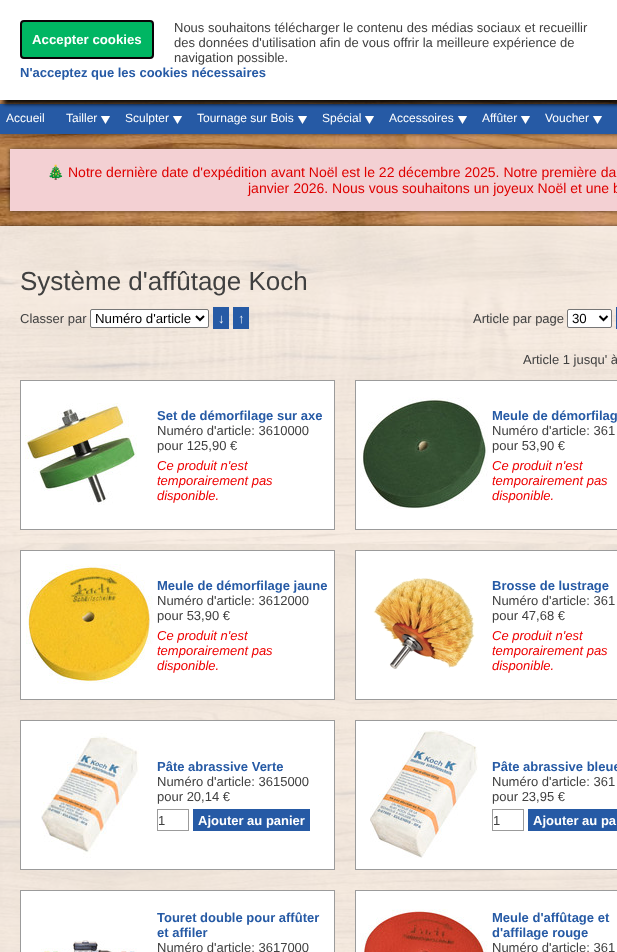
<svg xmlns="http://www.w3.org/2000/svg" width="617" height="952" viewBox="0 0 617 952">
  <defs>
    <filter id="blur1" x="-50%" y="-200%" width="200%" height="500%"><feGaussianBlur stdDeviation="2"/></filter>
    <clipPath id="clip1"><rect x="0" y="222" width="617" height="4"/></clipPath>
  </defs>
  <rect width="100%" height="100%" fill="#ffffff"/>
  <image x="0" y="100" width="617" height="852" href="img1.png"/>
  <rect x="0" y="104" width="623" height="30" fill="#000000" fill-opacity="0.6" filter="url(#blur1)"/>
  <rect x="0" y="104" width="617" height="30" fill="#265aa5"/>
  <rect x="4" y="4" width="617" height="100" fill="#000000" fill-opacity="0.93" filter="url(#blur1)"/>
  <rect x="0" y="0" width="617" height="100" fill="#ffffff"/>
  <text x="174" y="32" font-family="Liberation Sans" font-size="13" fill="#404040">Nous souhaitons télécharger le contenu des médias sociaux et recueillir</text>
  <rect x="21" y="21" width="132" height="37" rx="3" fill="#00b663" stroke="#0b0207" stroke-width="2"/>
  <text x="32" y="44" font-family="Liberation Sans" font-size="13.25" font-weight="bold" fill="#ffffff">Accepter cookies</text>
  <text x="174" y="47" font-family="Liberation Sans" font-size="13" fill="#404040">des données d'utilisation afin de vous offrir la meilleure expérience de</text>
  <text x="174" y="62" font-family="Liberation Sans" font-size="13" fill="#404040">navigation possible.</text>
  <text x="20" y="77" font-family="Liberation Sans" font-size="13" font-weight="bold" fill="#265aa5">N'acceptez que les cookies nécessaires</text>
  <text x="6" y="122" font-family="Liberation Sans" font-size="12" fill="#ffffff">Accueil</text>
  <image x="100" y="116" width="10" height="8" href="img2.png"/>
  <text x="66" y="122" font-family="Liberation Sans" font-size="12" fill="#ffffff">Tailler</text>
  <image x="172" y="116" width="10" height="8" href="img2.png"/>
  <text x="125" y="122" font-family="Liberation Sans" font-size="12" fill="#ffffff">Sculpter</text>
  <image x="297" y="116" width="10" height="8" href="img2.png"/>
  <text x="197" y="122" font-family="Liberation Sans" font-size="12" fill="#ffffff">Tournage sur Bois</text>
  <image x="364" y="116" width="10" height="8" href="img2.png"/>
  <text x="322" y="122" font-family="Liberation Sans" font-size="12" fill="#ffffff">Spécial</text>
  <image x="457" y="116" width="10" height="8" href="img2.png"/>
  <text x="389" y="122" font-family="Liberation Sans" font-size="12" fill="#ffffff">Accessoires</text>
  <image x="520" y="116" width="10" height="8" href="img2.png"/>
  <text x="482" y="122" font-family="Liberation Sans" font-size="12" fill="#ffffff">Affûter</text>
  <image x="592" y="116" width="10" height="8" href="img2.png"/>
  <text x="545" y="122" font-family="Liberation Sans" font-size="12" fill="#ffffff">Voucher</text>
  <rect x="10" y="149" width="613" height="62" fill="#000000" fill-opacity="0.6" filter="url(#blur1)"/>
  <rect x="10" y="149" width="607" height="62" fill="#f3d0d3"/>
  <text x="47" y="177" font-family="Noto Color Emoji" font-size="14" fill="#de0000">🎄</text>
  <text x="68" y="177" font-family="Liberation Sans" font-size="14" fill="#de0000">Notre dernière date d'expédition avant Noël est le 22 décembre 2025. Notre première da</text>
  <text x="248" y="193" font-family="Liberation Sans" font-size="14" fill="#de0000">janvier 2026. Nous vous souhaitons un joyeux Noël et une b</text>
  <g clip-path="url(#clip1)">
    <rect x="0" y="226" width="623" height="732" fill="#000000" fill-opacity="0.6" filter="url(#blur1)"/>
  </g>
  <rect x="0" y="226" width="617" height="726" fill="#ffffff" fill-opacity="0.8"/>
  <text x="20" y="290" font-family="Liberation Sans" font-size="26" fill="#404040">Système d'affûtage Koch</text>
  <text x="20" y="323" font-family="Liberation Sans" font-size="13" fill="#404040">Classer par</text>
  <rect x="90.5" y="309.5" width="118" height="18" rx="1.5" fill="#ffffff" stroke="#767676"/>
  <path d="M196 316L200 320L204 316" fill="none" stroke="#000000" stroke-width="2"/>
  <text x="95" y="323" font-family="Liberation Sans" font-size="13.25" fill="#000000">Numéro d'article</text>
  <rect x="213" y="307" width="16" height="22" fill="#265aa5"/>
  <text x="218" y="323" font-family="Liberation Sans" font-size="13" font-weight="bold" fill="#ffffff">↓</text>
  <rect x="233" y="307" width="16" height="22" fill="#265aa5"/>
  <text x="238" y="323" font-family="Liberation Sans" font-size="13" font-weight="bold" fill="#ffffff">↑</text>
  <text x="473" y="323" font-family="Liberation Sans" font-size="13" fill="#404040">Article par page</text>
  <rect x="567.5" y="309.5" width="44" height="18" rx="1.5" fill="#ffffff" stroke="#767676"/>
  <path d="M599.5 316L603.5 320L607.5 316" fill="none" stroke="#000000" stroke-width="2"/>
  <text x="572" y="323" font-family="Liberation Sans" font-size="13.25" fill="#000000">30</text>
  <rect x="616" y="307" width="1" height="22" fill="#265aa5"/>
  <text x="523" y="364" font-family="Liberation Sans" font-size="13" fill="#404040">Article 1 jusqu' à</text>
  <rect x="20.5" y="380.5" width="314" height="149" fill="#ffffff" stroke="#9b9b9b"/>
  <image x="25" y="403" width="112" height="102" href="img3.png"/>
  <text x="157" y="420" font-family="Liberation Sans" font-size="13" font-weight="bold" fill="#265aa5">Set de démorfilage sur axe</text>
  <text x="157" y="435" font-family="Liberation Sans" font-size="13" fill="#404040">Numéro d'article: 3610000</text>
  <text x="157" y="450" font-family="Liberation Sans" font-size="13" fill="#404040">pour 125,90 €</text>
  <text x="157" y="470" font-family="Liberation Sans" font-size="13" font-style="italic" fill="#ee0000">Ce produit n'est</text>
  <text x="157" y="485" font-family="Liberation Sans" font-size="13" font-style="italic" fill="#ee0000">temporairement pas</text>
  <text x="157" y="500" font-family="Liberation Sans" font-size="13" font-style="italic" fill="#ee0000">disponible.</text>
  <rect x="355.5" y="380.5" width="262" height="149" fill="#ffffff" stroke="#9b9b9b"/>
  <image x="360" y="397" width="128" height="112" href="img4.png"/>
  <text x="492" y="420" font-family="Liberation Sans" font-size="13" font-weight="bold" fill="#265aa5">Meule de démorfilag</text>
  <text x="492" y="435" font-family="Liberation Sans" font-size="13" fill="#404040">Numéro d'article: 361</text>
  <text x="492" y="450" font-family="Liberation Sans" font-size="13" fill="#404040">pour 53,90 €</text>
  <text x="492" y="470" font-family="Liberation Sans" font-size="13" font-style="italic" fill="#ee0000">Ce produit n'est</text>
  <text x="492" y="485" font-family="Liberation Sans" font-size="13" font-style="italic" fill="#ee0000">temporairement pas</text>
  <text x="492" y="500" font-family="Liberation Sans" font-size="13" font-style="italic" fill="#ee0000">disponible.</text>
  <rect x="20.5" y="550.5" width="314" height="149" fill="#ffffff" stroke="#9b9b9b"/>
  <image x="26" y="564" width="127" height="120" href="img5.png"/>
  <text x="157" y="590" font-family="Liberation Sans" font-size="13" font-weight="bold" fill="#265aa5">Meule de démorfilage jaune</text>
  <text x="157" y="605" font-family="Liberation Sans" font-size="13" fill="#404040">Numéro d'article: 3612000</text>
  <text x="157" y="620" font-family="Liberation Sans" font-size="13" fill="#404040">pour 53,90 €</text>
  <text x="157" y="640" font-family="Liberation Sans" font-size="13" font-style="italic" fill="#ee0000">Ce produit n'est</text>
  <text x="157" y="655" font-family="Liberation Sans" font-size="13" font-style="italic" fill="#ee0000">temporairement pas</text>
  <text x="157" y="670" font-family="Liberation Sans" font-size="13" font-style="italic" fill="#ee0000">disponible.</text>
  <rect x="355.5" y="550.5" width="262" height="149" fill="#ffffff" stroke="#9b9b9b"/>
  <image x="373" y="578" width="102" height="91" href="img6.png"/>
  <text x="492" y="590" font-family="Liberation Sans" font-size="13" font-weight="bold" fill="#265aa5">Brosse de lustrage</text>
  <text x="492" y="605" font-family="Liberation Sans" font-size="13" fill="#404040">Numéro d'article: 361</text>
  <text x="492" y="620" font-family="Liberation Sans" font-size="13" fill="#404040">pour 47,68 €</text>
  <text x="492" y="640" font-family="Liberation Sans" font-size="13" font-style="italic" fill="#ee0000">Ce produit n'est</text>
  <text x="492" y="655" font-family="Liberation Sans" font-size="13" font-style="italic" fill="#ee0000">temporairement pas</text>
  <text x="492" y="670" font-family="Liberation Sans" font-size="13" font-style="italic" fill="#ee0000">disponible.</text>
  <rect x="20.5" y="720.5" width="314" height="149" fill="#ffffff" stroke="#9b9b9b"/>
  <image x="41" y="733" width="98" height="125" href="img7.png"/>
  <text x="157" y="771" font-family="Liberation Sans" font-size="13" font-weight="bold" fill="#265aa5">Pâte abrassive Verte</text>
  <text x="157" y="786" font-family="Liberation Sans" font-size="13" fill="#404040">Numéro d'article: 3615000</text>
  <text x="157" y="801" font-family="Liberation Sans" font-size="13" fill="#404040">pour 20,14 €</text>
  <rect x="157.5" y="809.5" width="31" height="21" fill="none" stroke="#9b9b9b"/>
  <text x="158" y="825" font-family="Liberation Sans" font-size="13" fill="#404040">1</text>
  <rect x="193" y="809" width="117" height="22" fill="#265aa5"/>
  <text x="198" y="825" font-family="Liberation Sans" font-size="13" font-weight="bold" fill="#ffffff">Ajouter au panier</text>
  <rect x="355.5" y="720.5" width="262" height="149" fill="#ffffff" stroke="#9b9b9b"/>
  <image x="370" y="730" width="108" height="128" href="img8.png"/>
  <text x="492" y="771" font-family="Liberation Sans" font-size="13" font-weight="bold" fill="#265aa5">Pâte abrassive bleue</text>
  <text x="492" y="786" font-family="Liberation Sans" font-size="13" fill="#404040">Numéro d'article: 361</text>
  <text x="492" y="801" font-family="Liberation Sans" font-size="13" fill="#404040">pour 23,95 €</text>
  <rect x="492.5" y="809.5" width="31" height="21" fill="none" stroke="#9b9b9b"/>
  <text x="493" y="825" font-family="Liberation Sans" font-size="13" fill="#404040">1</text>
  <rect x="528" y="809" width="89" height="22" fill="#265aa5"/>
  <text x="533" y="825" font-family="Liberation Sans" font-size="13" font-weight="bold" fill="#ffffff">Ajouter au pa</text>
  <rect x="20.5" y="890.5" width="314" height="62" fill="#ffffff" stroke="#9b9b9b"/>
  <image x="41" y="940" width="96" height="12" href="img9.png"/>
  <text x="157" y="922" font-family="Liberation Sans" font-size="13" font-weight="bold" fill="#265aa5">Touret double pour affûter</text>
  <text x="157" y="937" font-family="Liberation Sans" font-size="13" font-weight="bold" fill="#265aa5">et affiler</text>
  <text x="157" y="952" font-family="Liberation Sans" font-size="13" fill="#404040">Numéro d'article: 3617000</text>
  <rect x="355.5" y="890.5" width="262" height="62" fill="#ffffff" stroke="#9b9b9b"/>
  <image x="360" y="909" width="128" height="43" href="img10.png"/>
  <text x="492" y="922" font-family="Liberation Sans" font-size="13" font-weight="bold" fill="#265aa5">Meule d'affûtage et</text>
  <text x="492" y="937" font-family="Liberation Sans" font-size="13" font-weight="bold" fill="#265aa5">d'affilage rouge</text>
  <text x="492" y="952" font-family="Liberation Sans" font-size="13" fill="#404040">Numéro d'article: 361</text>
</svg>
